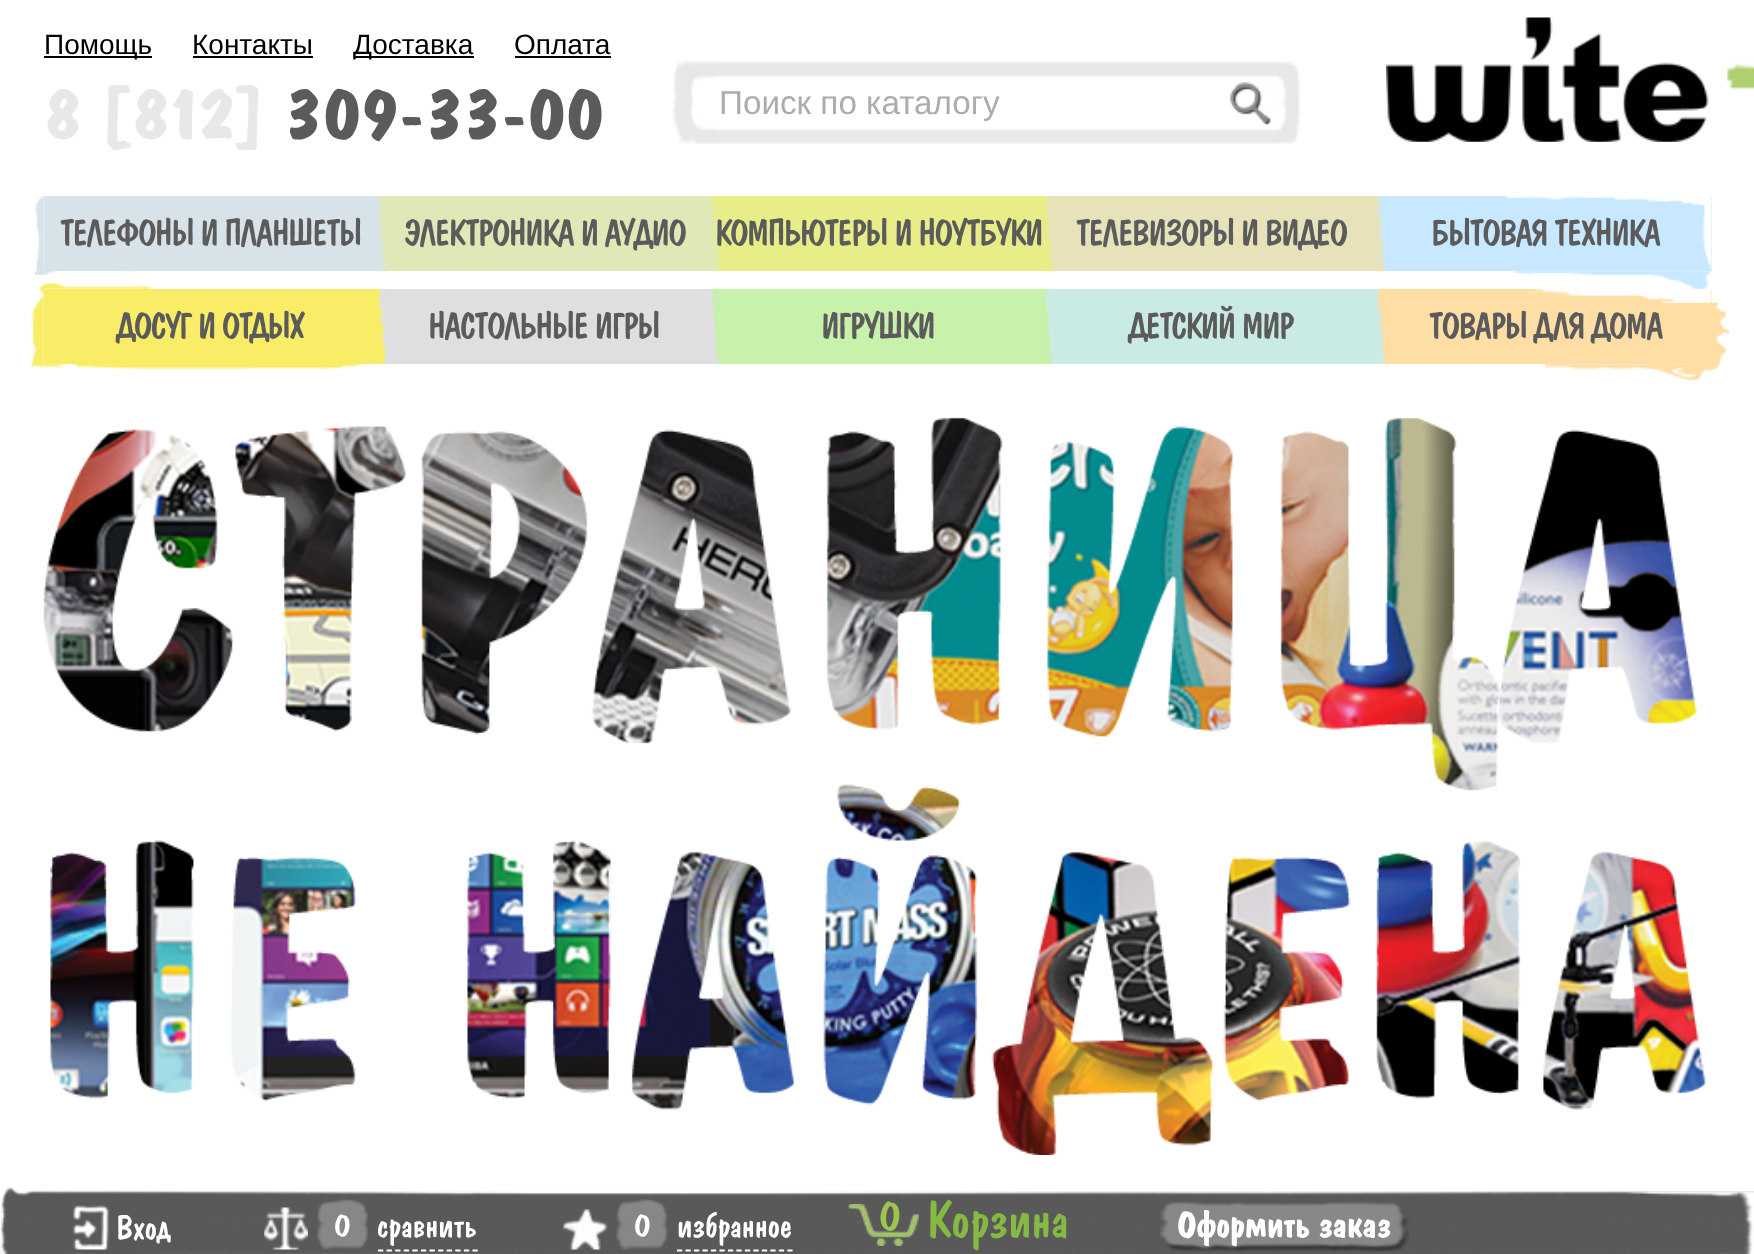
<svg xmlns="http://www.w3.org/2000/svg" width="1754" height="1254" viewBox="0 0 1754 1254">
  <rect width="100%" height="100%" fill="#ffffff"/>
  <rect x="44" y="56" width="108" height="2" fill="#000000"/>
  <text x="44" y="54" font-family="Liberation Sans" font-size="28" fill="#000000">Помощь</text>
  <text x="192" y="54" font-family="Liberation Sans" font-size="28" fill="#000000">Контакты</text>
  <rect x="193" y="56" width="120" height="2" fill="#000000"/>
  <rect x="354" y="56" width="120" height="2" fill="#000000"/>
  <text x="353" y="54" font-family="Liberation Sans" font-size="28" fill="#000000">Доставка</text>
  <text x="514" y="54" font-family="Liberation Sans" font-size="28" fill="#000000">Оплата</text>
  <rect x="515" y="56" width="96" height="2" fill="#000000"/>
  <text x="44" y="138" font-family="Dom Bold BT" font-size="75.25" font-weight="bold" letter-spacing="1.75" fill="#e8e8e8">8 [812]</text>
  <text x="285" y="138" font-family="Dom Bold BT" font-size="75.25" font-weight="bold" letter-spacing="1.75" fill="#5b5b5b">309-33-00</text>
  <image x="672" y="61" width="629" height="83" href="img1.png"/>
  <image x="672" y="61" width="44" height="83" href="img2.png"/>
  <text x="719" y="114" font-family="Liberation Sans" font-size="33.25" fill="#acacac">Поиск по каталогу</text>
  <image x="1230" y="82" width="41" height="43" href="img3.png"/>
  <image x="1386" y="17" width="368" height="125" href="img4.png"/>
  <rect x="44" y="196" width="334" height="75" fill="#d8e3e9"/>
  <image x="35" y="192" width="101" height="83" href="img5.png"/>
  <text x="60" y="245" font-family="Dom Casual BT" font-size="36.75" letter-spacing="-1.75" fill="#5b5b5b">ТЕЛЕФОНЫ И ПЛАНШЕТЫ</text>
  <rect x="386" y="196" width="325" height="75" fill="#e0e8b7"/>
  <image x="378" y="196" width="9" height="76" href="img6.png"/>
  <text x="404" y="245" font-family="Dom Casual BT" font-size="36.75" letter-spacing="-1.75" fill="#5b5b5b">ЭЛЕКТРОНИКА И АУДИО</text>
  <rect x="711" y="196" width="334" height="75" fill="#e8ed87"/>
  <image x="710" y="196" width="10" height="76" href="img7.png"/>
  <text x="715" y="245" font-family="Dom Casual BT" font-size="36.75" letter-spacing="-1.75" fill="#5b5b5b">КОМПЬЮТЕРЫ И НОУТБУКИ</text>
  <rect x="1053" y="196" width="324" height="75" fill="#e7e2ba"/>
  <image x="1044" y="196" width="10" height="76" href="img8.png"/>
  <text x="1076" y="245" font-family="Dom Casual BT" font-size="36.75" letter-spacing="-1.75" fill="#5b5b5b">ТЕЛЕВИЗОРЫ И ВИДЕО</text>
  <rect x="1377" y="196" width="335" height="75" fill="#c8e8ff"/>
  <image x="1377" y="196" width="9" height="76" href="img9.png"/>
  <image x="1506" y="196" width="206" height="74" href="img10.png"/>
  <text x="1431" y="245" font-family="Dom Casual BT" font-size="36.75" letter-spacing="-1.75" fill="#5b5b5b">БЫТОВАЯ ТЕХНИКА</text>
  <image x="1513" y="271" width="199" height="18" href="img11.png"/>
  <rect x="44" y="289" width="334" height="75" fill="#f9ed67"/>
  <image x="31" y="283" width="121" height="85" href="img12.png"/>
  <text x="116" y="338" font-family="Dom Casual BT" font-size="36.75" letter-spacing="-1.75" fill="#5b5b5b">ДОСУГ И ОТДЫХ</text>
  <image x="72" y="364" width="303" height="6" href="img13.png"/>
  <rect x="378" y="289" width="333" height="75" fill="#dfdfe1"/>
  <image x="378" y="288" width="9" height="76" href="img14.png"/>
  <text x="428" y="338" font-family="Dom Casual BT" font-size="36.75" letter-spacing="-1.75" fill="#5b5b5b">НАСТОЛЬНЫЕ ИГРЫ</text>
  <rect x="719" y="289" width="326" height="75" fill="#c8f1ab"/>
  <image x="710" y="288" width="10" height="76" href="img15.png"/>
  <text x="821" y="338" font-family="Dom Casual BT" font-size="36.75" letter-spacing="-1.75" fill="#5b5b5b">ИГРУШКИ</text>
  <rect x="1045" y="289" width="332" height="75" fill="#caebe4"/>
  <image x="1045" y="288" width="9" height="76" href="img16.png"/>
  <text x="1128" y="338" font-family="Dom Casual BT" font-size="36.75" letter-spacing="-1.75" fill="#5b5b5b">ДЕТСКИЙ МИР</text>
  <rect x="1377" y="289" width="335" height="75" fill="#fedea5"/>
  <image x="1377" y="288" width="9" height="76" href="img17.png"/>
  <image x="1529" y="289" width="183" height="14" href="img18.png"/>
  <image x="1545" y="302" width="184" height="78" href="img19.png"/>
  <text x="1429" y="338" font-family="Dom Casual BT" font-size="36.75" letter-spacing="-1.75" fill="#5b5b5b">ТОВАРЫ ДЛЯ ДОМА</text>
  <image x="43" y="417" width="1663" height="738" href="img20.png"/>
  <image x="0" y="1187" width="1754" height="67" href="img21.png"/>
  <image x="73" y="1205" width="36" height="45" href="img22.png"/>
  <text x="116" y="1239" font-family="Dom Casual BT" font-size="35" fill="#ffffff">Вход</text>
  <image x="1627" y="1191" width="127" height="63" href="img30.png"/>
  <image x="1715" y="1253" width="4" height="1" href="img23.png"/>
  <image x="264" y="1207" width="44" height="43" href="img24.png"/>
  <image x="316" y="1199" width="53" height="51" href="img25.png"/>
  <text x="334" y="1236" font-family="Dom Casual BT" font-size="35" fill="#ffffff">0</text>
  <path d="M378 1250.5H478" fill="none" stroke="#ffffff" stroke-width="1.8" stroke-dasharray="5.25 3.34"/>
  <text x="377" y="1237" font-family="Dom Casual BT" font-size="35" fill="#ffffff">сравнить</text>
  <image x="563" y="1209" width="45" height="41" href="img26.png"/>
  <image x="616" y="1199" width="52" height="51" href="img27.png"/>
  <text x="634" y="1236" font-family="Dom Casual BT" font-size="35" fill="#ffffff">0</text>
  <path d="M677 1250.5H793" fill="none" stroke="#ffffff" stroke-width="1.8" stroke-dasharray="5.25 3.24"/>
  <text x="677" y="1237" font-family="Dom Casual BT" font-size="35" fill="#ffffff">избранное</text>
  <image x="848" y="1204" width="71" height="42" href="img28.png"/>
  <text x="879" y="1230" font-family="Dom Casual BT" font-size="46" fill="#9dc44d">0</text>
  <text x="927" y="1237" font-family="Dom Casual BT" font-size="52.5" fill="#86b942">Корзина</text>
  <image x="1160" y="1202" width="249" height="50" href="img29.png"/>
  <text x="1177" y="1237" font-family="Dom Bold BT" font-size="36.75" font-weight="bold" fill="#ffffff">Оформить заказ</text>
</svg>
